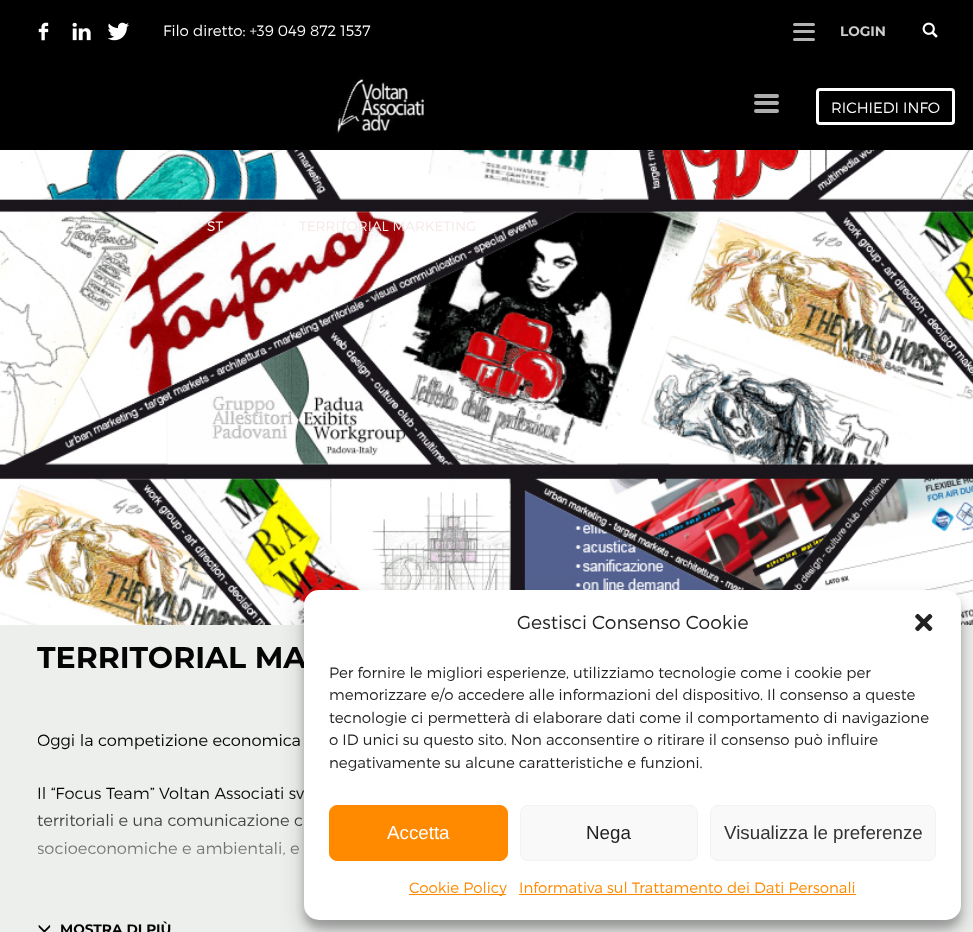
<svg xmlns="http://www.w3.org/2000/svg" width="973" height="932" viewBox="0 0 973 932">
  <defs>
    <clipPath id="clip1"><rect x="38" y="726" width="900" height="188"/></clipPath>
    <linearGradient id="g1" gradientUnits="userSpaceOnUse" x1="488" y1="789" x2="488" y2="914"><stop offset="0" stop-color="#edefed" stop-opacity="0"/><stop offset="1" stop-color="#edefed"/></linearGradient>
    <filter id="blur1" x="-50%" y="-200%" width="200%" height="500%"><feGaussianBlur stdDeviation="4"/></filter>
    <filter id="blur2" x="-50%" y="-200%" width="200%" height="500%"><feGaussianBlur stdDeviation="12.5"/></filter>
  </defs>
  <rect width="100%" height="100%" fill="#edefed"/>
  <rect x="0" y="0" width="973" height="150" fill="#000000"/>
  <image x="38" y="22" width="11" height="19" href="img1.png"/>
  <image x="72" y="22" width="19" height="19" href="img2.png"/>
  <image x="107" y="22" width="22" height="19" href="img3.png"/>
  <text x="163" y="36" font-family="Montserrat" font-size="15" font-weight="300" fill="#fdfdfd">Filo diretto: +39 049 872 1537</text>
  <rect x="793" y="38" width="22" height="3" rx="1.5" fill="#b3b3b3"/>
  <rect x="793" y="30" width="22" height="3" rx="1.5" fill="#b3b3b3"/>
  <rect x="793" y="23" width="22" height="3" rx="1.5" fill="#b3b3b3"/>
  <text x="840" y="36" font-family="Montserrat" font-size="13.75" font-weight="100" fill="#cccccc">LOGIN</text>
  <image x="922" y="22" width="16" height="16" href="img4.png"/>
  <image x="333" y="77" width="92" height="57" href="img5.png"/>
  <rect x="754" y="94" width="25" height="4" rx="2" fill="#adadad"/>
  <rect x="754" y="101" width="25" height="4" rx="2" fill="#adadad"/>
  <rect x="754" y="109" width="25" height="4" rx="2" fill="#adadad"/>
  <rect x="817.5" y="89.5" width="136" height="34" rx="2.5" fill="none" stroke="#ffffff" stroke-width="3"/>
  <text x="831" y="113" font-family="Montserrat" font-size="15" font-weight="300" fill="#fdfdfd">RICHIEDI INFO</text>
  <image x="0" y="150" width="973" height="475" href="img6.png"/>
  <text x="72" y="231" font-family="Montserrat" font-size="13.75" font-weight="300" fill="#fdfdfd">E</text>
  <text x="207" y="231" font-family="Montserrat" font-size="13.75" font-weight="300" fill="#fdfdfd">ST</text>
  <text x="299" y="231" font-family="Montserrat" font-size="13.75" font-weight="300" fill="#f5e9e9">TERRITORIAL MARKETING</text>
  <text x="37" y="668" font-family="Montserrat" font-size="30" font-weight="100" fill="#050505">TERRITORIAL MA</text>
  <g clip-path="url(#clip1)">
    <text x="37" y="746" font-family="Montserrat" font-size="16.25" font-weight="300" fill="#050505">Oggi la competizione economica</text>
  </g>
  <text x="37" y="799" font-family="Montserrat" font-size="16.25" font-weight="300" fill="#050505">Il “Focus Team” Voltan Associati sv</text>
  <text x="37" y="826" font-family="Montserrat" font-size="16.25" font-weight="300" fill="#050505">territoriali e una comunicazione c</text>
  <g clip-path="url(#clip1)">
    <text x="37" y="854" font-family="Montserrat" font-size="16.25" font-weight="300" fill="#050505">socioeconomiche e ambientali, e</text>
  </g>
  <rect x="38" y="792" width="265" height="64" fill="url(#g1)"/>
  <image x="38" y="925" width="13" height="7" href="img7.png"/>
  <text x="60" y="934" font-family="Montserrat" font-size="13.75" font-weight="100" fill="#050505">MOSTRA DI PIÙ</text>
  <rect x="304" y="598" width="657" height="330" rx="15" fill="#000000" fill-opacity="0.23" filter="url(#blur1)"/>
  <rect x="304" y="603" width="657" height="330" rx="15" fill="#000000" fill-opacity="0.19" filter="url(#blur2)"/>
  <rect x="304" y="590" width="657" height="330" rx="15" fill="#ffffff"/>
  <text x="517" y="629" font-family="Montserrat" font-size="18.75" font-weight="300" fill="#222222">Gestisci Consenso Cookie</text>
  <image x="915" y="613" width="18" height="19" href="img8.png"/>
  <text x="329" y="678" font-family="Montserrat" font-size="15" font-weight="300" fill="#222222">Per fornire le migliori esperienze, utilizziamo tecnologie come i cookie per</text>
  <text x="329" y="700" font-family="Montserrat" font-size="15" font-weight="300" fill="#222222">memorizzare e/o accedere alle informazioni del dispositivo. Il consenso a queste</text>
  <text x="329" y="723" font-family="Montserrat" font-size="15" font-weight="300" fill="#222222">tecnologie ci permetterà di elaborare dati come il comportamento di navigazione</text>
  <text x="329" y="745" font-family="Montserrat" font-size="15" font-weight="300" fill="#222222">o ID unici su questo sito. Non acconsentire o ritirare il consenso può influire</text>
  <text x="329" y="768" font-family="Montserrat" font-size="15" font-weight="300" fill="#222222">negativamente su alcune caratteristiche e funzioni.</text>
  <rect x="329.5" y="805.5" width="178" height="55" rx="7.5" fill="#ff8a00" stroke="#ff8a00"/>
  <text x="387" y="839" font-family="Liberation Sans" font-size="18.75" fill="#fdfdfd">Accetta</text>
  <rect x="520.5" y="805.5" width="177" height="55" rx="7.5" fill="#f9f9f9" stroke="#f2f2f2"/>
  <text x="586" y="839" font-family="Liberation Sans" font-size="18.75" fill="#222222">Nega</text>
  <rect x="710.5" y="805.5" width="225" height="55" rx="7.5" fill="#f9f9f9" stroke="#f2f2f2"/>
  <text x="724" y="839" font-family="Liberation Sans" font-size="18.75" fill="#333333">Visualizza le preferenze</text>
  <rect x="409" y="894" width="97" height="1" fill="#ff8a00"/>
  <text x="409" y="893" font-family="Montserrat" font-size="15" font-weight="300" fill="#ff8a00">Cookie Policy</text>
  <text x="519" y="893" font-family="Montserrat" font-size="15" font-weight="300" fill="#ff8a00">Informativa sul Trattamento dei Dati Personali</text>
  <rect x="519" y="894" width="337" height="1" fill="#ff8a00"/>
</svg>
